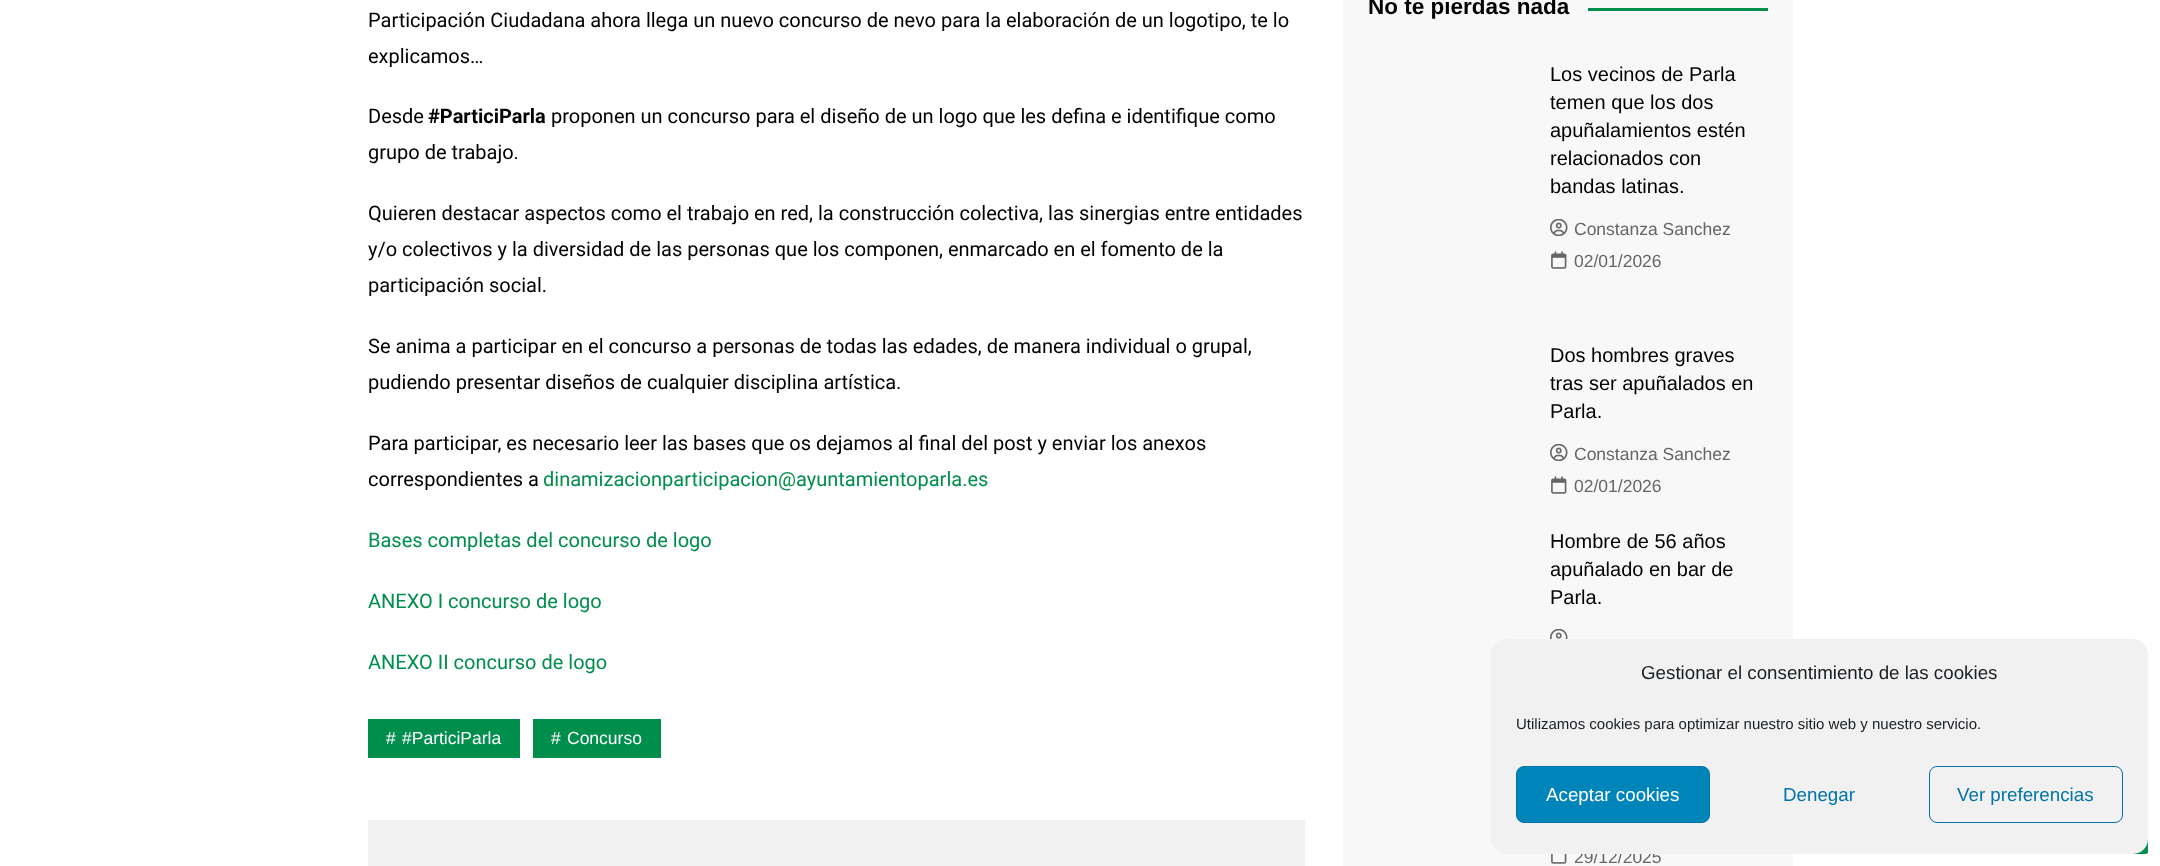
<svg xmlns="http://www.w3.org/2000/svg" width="2160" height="866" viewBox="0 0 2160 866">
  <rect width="100%" height="100%" fill="#ffffff"/>
  <text x="368" y="27" font-family="Roboto" font-size="20" fill="#010101">Participación Ciudadana ahora llega un nuevo concurso de nevo para la elaboración de un logotipo, te lo</text>
  <text x="368" y="63" font-family="Roboto" font-size="20" fill="#010101">explicamos…</text>
  <text x="368" y="123" font-family="Roboto" font-size="20" fill="#010101">Desde</text>
  <text x="428" y="123" font-family="Roboto" font-size="20" font-weight="bold" fill="#010101">#ParticiParla</text>
  <text x="551" y="123" font-family="Roboto" font-size="20" fill="#010101">proponen un concurso para el diseño de un logo que les defina e identifique como</text>
  <text x="368" y="159" font-family="Roboto" font-size="20" fill="#010101">grupo de trabajo.</text>
  <text x="368" y="220" font-family="Roboto" font-size="20" fill="#010101">Quieren destacar aspectos como el trabajo en red, la construcción colectiva, las sinergias entre entidades</text>
  <text x="368" y="256" font-family="Roboto" font-size="20" fill="#010101">y/o colectivos y la diversidad de las personas que los componen, enmarcado en el fomento de la</text>
  <text x="368" y="292" font-family="Roboto" font-size="20" fill="#010101">participación social.</text>
  <text x="368" y="353" font-family="Roboto" font-size="20" fill="#010101">Se anima a participar en el concurso a personas de todas las edades, de manera individual o grupal,</text>
  <text x="368" y="389" font-family="Roboto" font-size="20" fill="#010101">pudiendo presentar diseños de cualquier disciplina artística.</text>
  <text x="368" y="450" font-family="Roboto" font-size="20" fill="#010101">Para participar, es necesario leer las bases que os dejamos al final del post y enviar los anexos</text>
  <text x="368" y="486" font-family="Roboto" font-size="20" fill="#010101">correspondientes a</text>
  <text x="543" y="486" font-family="Roboto" font-size="20" fill="#008e4c">dinamizacionparticipacion@ayuntamientoparla.es</text>
  <text x="368" y="547" font-family="Roboto" font-size="20" fill="#008e4c">Bases completas del concurso de logo</text>
  <text x="368" y="608" font-family="Roboto" font-size="20" fill="#008e4c">ANEXO I concurso de logo</text>
  <text x="368" y="669" font-family="Roboto" font-size="20" fill="#008e4c">ANEXO II concurso de logo</text>
  <rect x="368" y="719" width="152" height="39" fill="#008e4c"/>
  <text x="386" y="744" font-family="Liberation Sans" font-size="17.5" fill="#ffffff">#</text>
  <text x="402" y="744" font-family="Liberation Sans" font-size="17.5" fill="#ffffff">#ParticiParla</text>
  <rect x="533" y="719" width="128" height="39" fill="#008e4c"/>
  <text x="551" y="744" font-family="Liberation Sans" font-size="17.5" fill="#ffffff">#</text>
  <text x="567" y="744" font-family="Liberation Sans" font-size="17.5" fill="#ffffff">Concurso</text>
  <rect x="368" y="820" width="937" height="46" fill="#f2f2f2"/>
  <rect x="1343" y="0" width="450" height="866" fill="#f8f8f8"/>
  <text x="1368" y="14" font-family="Liberation Sans" font-size="22.5" font-weight="bold" fill="#010101">No te pierdas nada</text>
  <rect x="1588" y="8" width="180" height="3" fill="#008e4c"/>
  <text x="1550" y="81" font-family="Liberation Sans" font-size="20" fill="#010101">Los vecinos de Parla</text>
  <text x="1550" y="109" font-family="Liberation Sans" font-size="20" fill="#010101">temen que los dos</text>
  <text x="1550" y="137" font-family="Liberation Sans" font-size="20" fill="#010101">apuñalamientos estén</text>
  <text x="1550" y="165" font-family="Liberation Sans" font-size="20" fill="#010101">relacionados con</text>
  <text x="1550" y="193" font-family="Liberation Sans" font-size="20" fill="#010101">bandas latinas.</text>
  <image x="1550" y="219" width="18" height="17" href="img1.png"/>
  <text x="1574" y="235" font-family="Liberation Sans" font-size="17.5" fill="#666666">Constanza Sanchez</text>
  <image x="1551" y="251" width="16" height="18" href="img2.png"/>
  <text x="1574" y="267" font-family="Liberation Sans" font-size="17.5" fill="#666666">02/01/2026</text>
  <text x="1550" y="362" font-family="Liberation Sans" font-size="20" fill="#010101">Dos hombres graves</text>
  <text x="1550" y="390" font-family="Liberation Sans" font-size="20" fill="#010101">tras ser apuñalados en</text>
  <text x="1550" y="418" font-family="Liberation Sans" font-size="20" fill="#010101">Parla.</text>
  <image x="1550" y="444" width="18" height="17" href="img1.png"/>
  <text x="1574" y="460" font-family="Liberation Sans" font-size="17.5" fill="#666666">Constanza Sanchez</text>
  <image x="1551" y="476" width="16" height="18" href="img2.png"/>
  <text x="1574" y="492" font-family="Liberation Sans" font-size="17.5" fill="#666666">02/01/2026</text>
  <text x="1550" y="548" font-family="Liberation Sans" font-size="20" fill="#010101">Hombre de 56 años</text>
  <text x="1550" y="576" font-family="Liberation Sans" font-size="20" fill="#010101">apuñalado en bar de</text>
  <text x="1550" y="604" font-family="Liberation Sans" font-size="20" fill="#010101">Parla.</text>
  <image x="1550" y="629" width="18" height="10" href="img3.png"/>
  <image x="1551" y="854" width="16" height="10" href="img4.png"/>
  <text x="1574" y="863" font-family="Liberation Sans" font-size="17.5" fill="#666666">29/12/2025</text>
  <rect x="2091" y="798" width="57" height="56" rx="2.5" fill="#008e4c"/>
  <rect x="1491" y="639" width="657" height="215" rx="15" fill="#f1f1f1"/>
  <text x="1641" y="679" font-family="Liberation Sans" font-size="18.75" fill="#191e23">Gestionar el consentimiento de las cookies</text>
  <text x="1516" y="729" font-family="Liberation Sans" font-size="15" fill="#191e23">Utilizamos cookies para optimizar nuestro sitio web y nuestro servicio.</text>
  <rect x="1516.5" y="766.5" width="193" height="56" rx="7.5" fill="#0085ba" stroke="#0073aa"/>
  <text x="1546" y="801" font-family="Liberation Sans" font-size="18.75" fill="#ffffff">Aceptar cookies</text>
  <text x="1783" y="801" font-family="Liberation Sans" font-size="18.75" fill="#0073aa">Denegar</text>
  <rect x="1929.5" y="766.5" width="193" height="56" rx="7.5" fill="none" stroke="#0073aa"/>
  <text x="1957" y="801" font-family="Liberation Sans" font-size="18.75" fill="#0073aa">Ver preferencias</text>
</svg>
